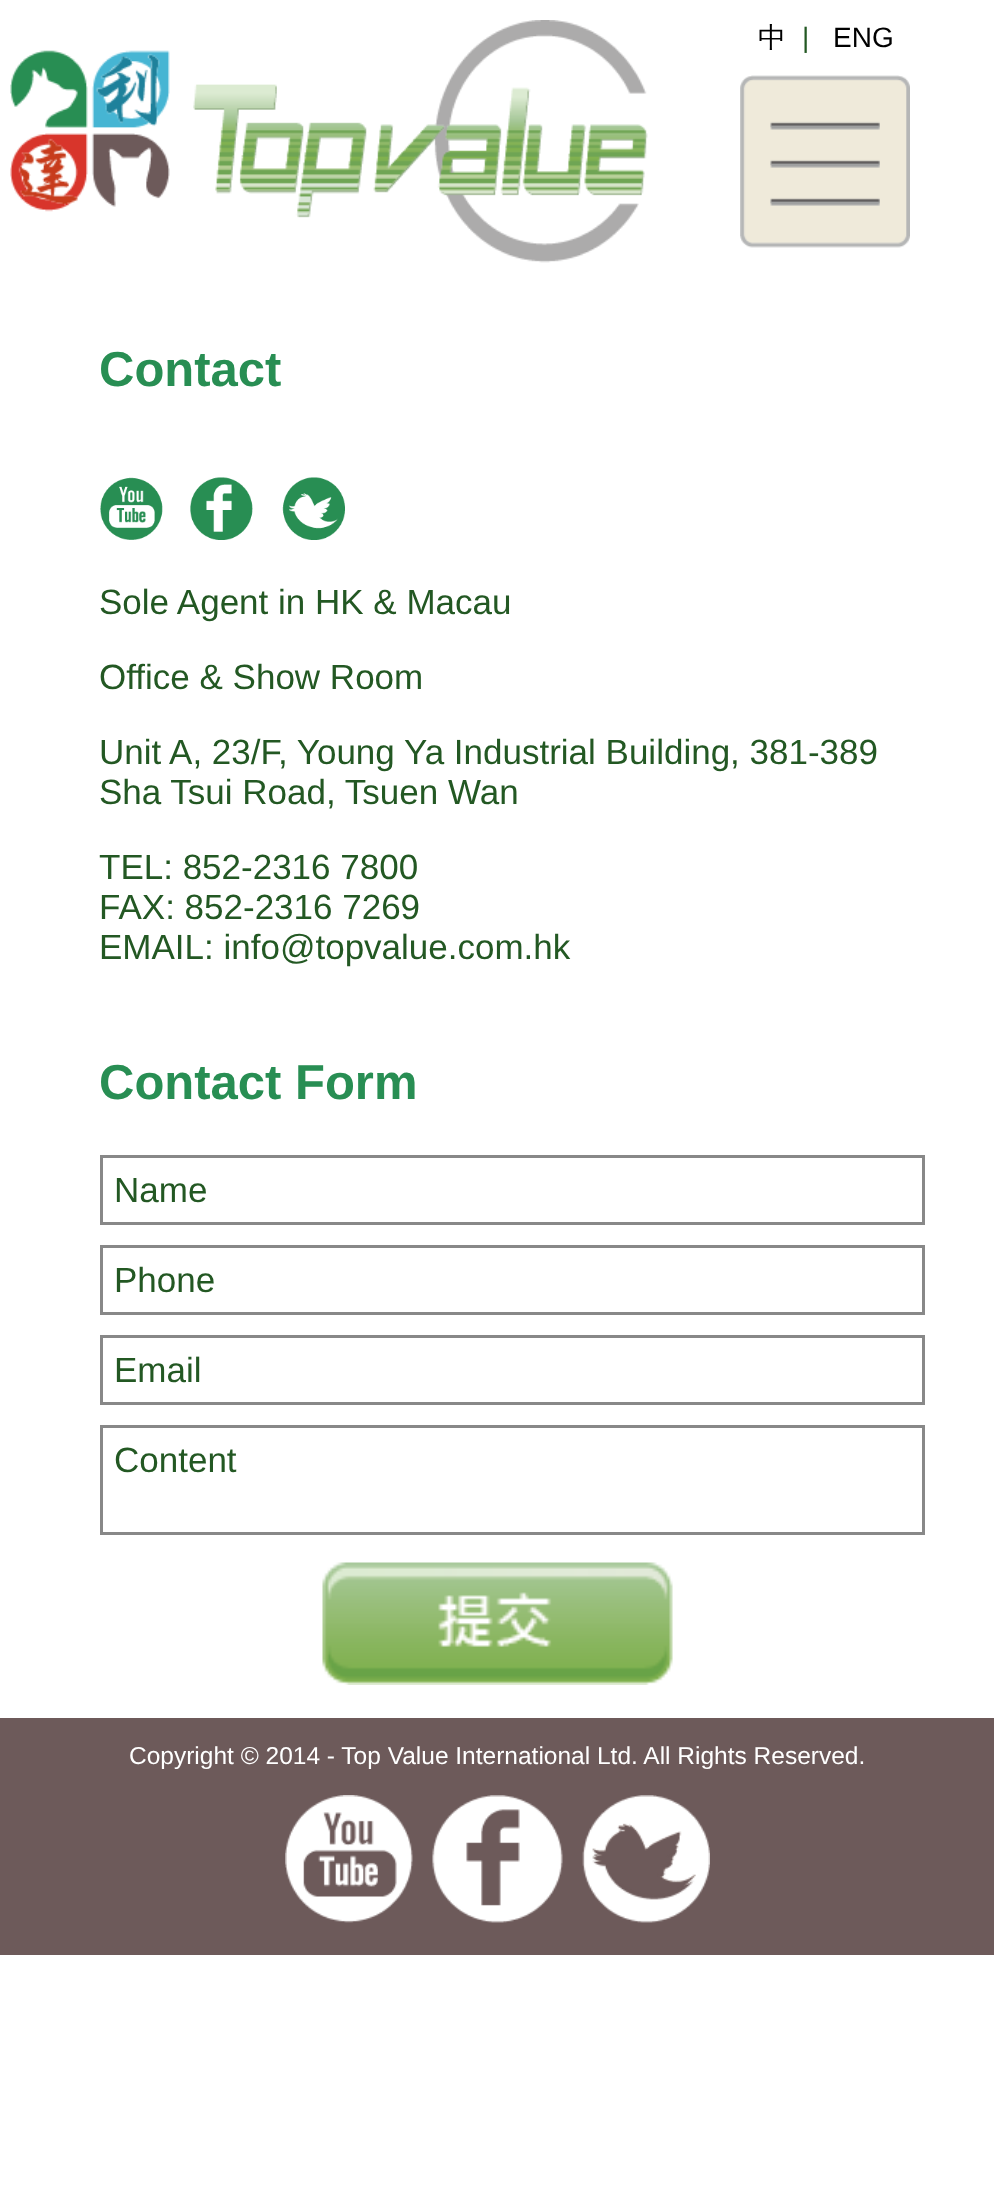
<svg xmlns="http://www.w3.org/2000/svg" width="994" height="2186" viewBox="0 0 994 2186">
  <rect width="100%" height="100%" fill="#ffffff"/>
  <image x="10" y="20" width="638" height="243" href="img1.png"/>
  <text x="758" y="47" font-family="WenQuanYi Zen Hei" font-size="28" font-weight="500" fill="#000000">中</text>
  <text x="802" y="47" font-family="Liberation Sans" font-size="28" fill="#235823">|</text>
  <text x="833" y="47" font-family="Liberation Sans" font-size="28" fill="#000000">ENG</text>
  <image x="740" y="75" width="170" height="173" href="img2.png"/>
  <text x="99" y="386" font-family="Liberation Sans" font-size="49" font-weight="bold" fill="#288e53">Contact</text>
  <image x="100" y="477" width="63" height="63" href="img3.png"/>
  <image x="190" y="477" width="63" height="63" href="img4.png"/>
  <image x="282" y="477" width="63" height="63" href="img5.png"/>
  <text x="99" y="614" font-family="Liberation Sans" font-size="35" fill="#235823">Sole Agent in HK &amp; Macau</text>
  <text x="99" y="689" font-family="Liberation Sans" font-size="35" fill="#235823">Office &amp; Show Room</text>
  <text x="99" y="764" font-family="Liberation Sans" font-size="35" fill="#235823">Unit A, 23/F, Young Ya Industrial Building, 381-389</text>
  <text x="99" y="804" font-family="Liberation Sans" font-size="35" fill="#235823">Sha Tsui Road, Tsuen Wan</text>
  <text x="99" y="879" font-family="Liberation Sans" font-size="35" fill="#235823">TEL: 852-2316 7800</text>
  <text x="99" y="919" font-family="Liberation Sans" font-size="35" fill="#235823">FAX: 852-2316 7269</text>
  <text x="99" y="959" font-family="Liberation Sans" font-size="35" fill="#235823">EMAIL: info@topvalue.com.hk</text>
  <text x="99" y="1099" font-family="Liberation Sans" font-size="49" font-weight="bold" fill="#288e53">Contact Form</text>
  <rect x="101.5" y="1156.5" width="822" height="67" fill="none" stroke="#888888" stroke-width="3"/>
  <text x="114" y="1202" font-family="Liberation Sans" font-size="35" fill="#235823">Name</text>
  <rect x="101.5" y="1246.5" width="822" height="67" fill="none" stroke="#888888" stroke-width="3"/>
  <text x="114" y="1292" font-family="Liberation Sans" font-size="35" fill="#235823">Phone</text>
  <rect x="101.5" y="1336.5" width="822" height="67" fill="none" stroke="#888888" stroke-width="3"/>
  <text x="114" y="1382" font-family="Liberation Sans" font-size="35" fill="#235823">Email</text>
  <rect x="101.5" y="1426.5" width="822" height="107" fill="none" stroke="#888888" stroke-width="3"/>
  <text x="114" y="1472" font-family="Liberation Sans" font-size="35" fill="#235823">Content</text>
  <image x="322" y="1562" width="351" height="123" href="img6.png"/>
  <rect x="0" y="1718" width="994" height="237" fill="#6d5a5a"/>
  <text x="129" y="1764" font-family="Liberation Sans" font-size="24.5" fill="#ffffff">Copyright © 2014 - Top Value International Ltd. All Rights Reserved.</text>
  <image x="285" y="1795" width="128" height="128" href="img7.png"/>
  <image x="432" y="1795" width="131" height="128" href="img8.png"/>
  <image x="582" y="1795" width="128" height="128" href="img9.png"/>
</svg>
